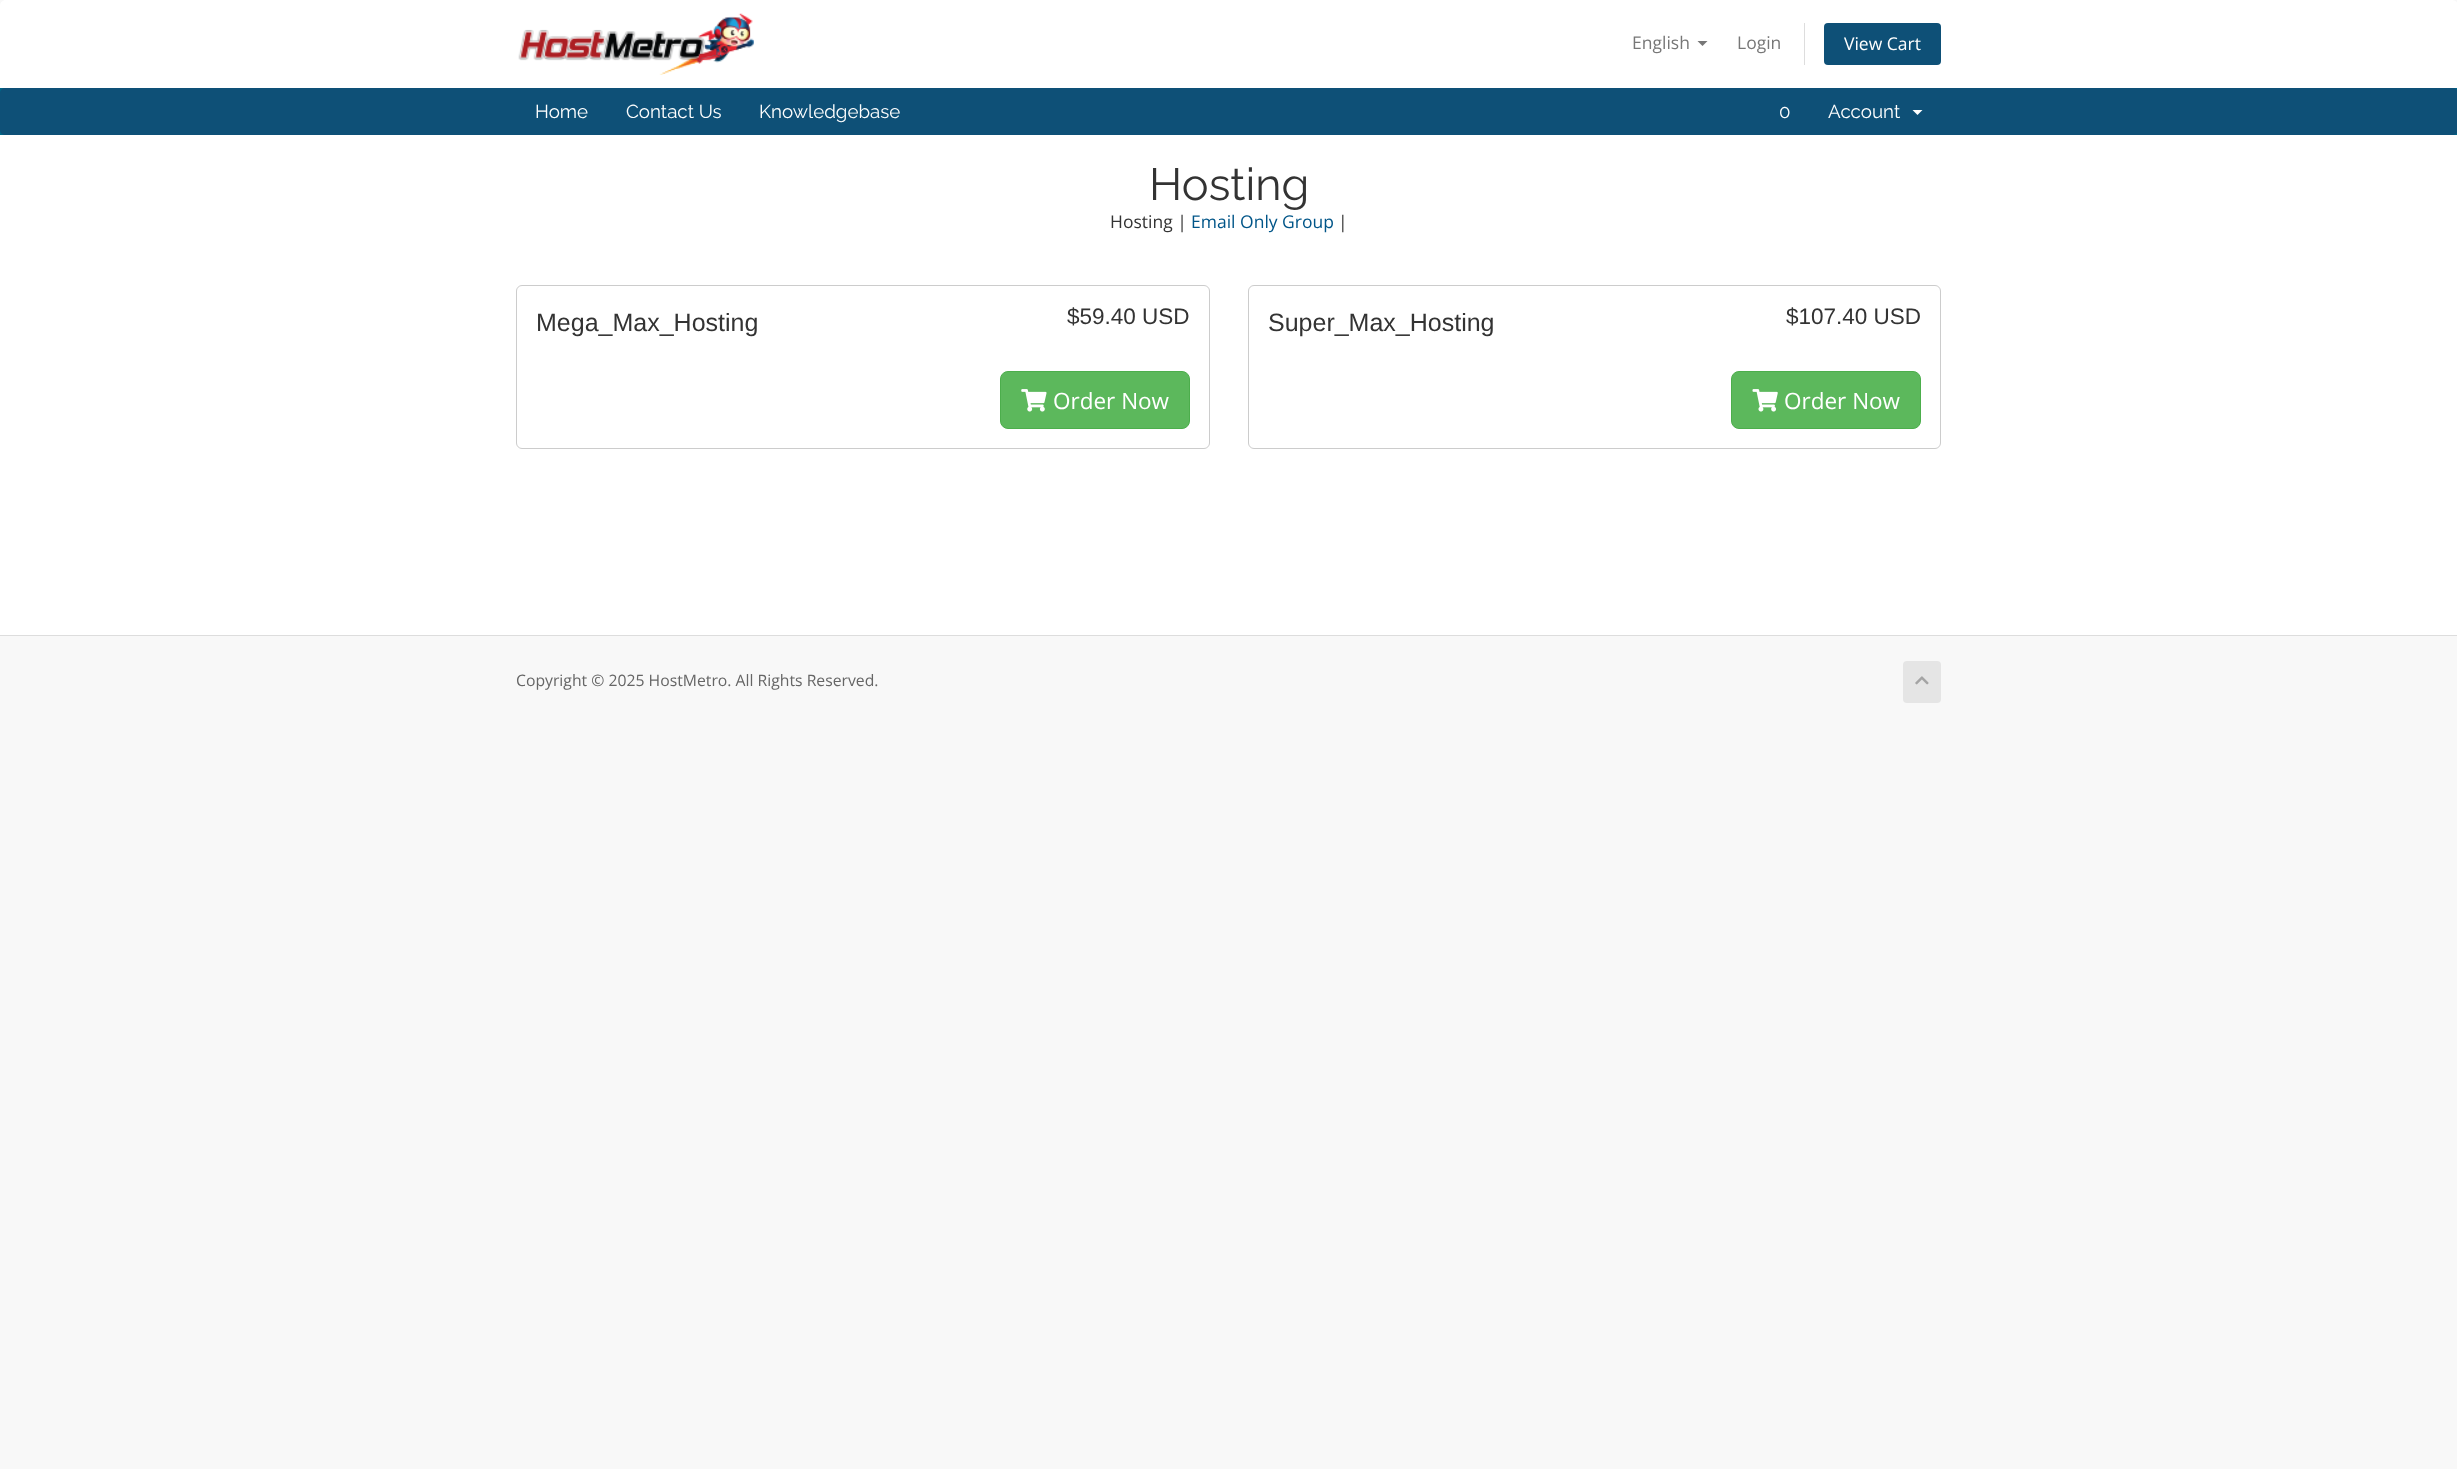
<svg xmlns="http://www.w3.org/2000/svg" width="2457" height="1469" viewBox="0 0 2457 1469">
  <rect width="100%" height="100%" fill="#f8f8f8"/>
  <path d="M6 0H2452C2455.5 0 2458 2.5 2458 6V88H0V6C0 2.5 2.5 0 6 0Z" fill="#ffffff"/>
  <image x="518" y="13" width="236" height="62" href="img1.png"/>
  <text x="1632" y="49" font-family="Open Sans" font-size="17.5" fill="#777777">English</text>
  <path d="M1697.5 41H1707.5L1702.5 46Z" fill="#777777"/>
  <text x="1737" y="49" font-family="Open Sans" font-size="17.5" fill="#777777">Login</text>
  <rect x="1804" y="23" width="1" height="42" fill="#dddddd"/>
  <rect x="1824" y="23" width="117" height="42" rx="4" fill="#0e5077"/>
  <text x="1844" y="50" font-family="Open Sans" font-size="17.5" fill="#ffffff">View Cart</text>
  <rect x="0" y="88" width="2457" height="47" fill="#006687"/>
  <rect x="0" y="88" width="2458" height="47" rx="5" fill="#0e5077"/>
  <text x="535" y="118" font-family="Raleway" font-size="18.75" fill="#ffffff">Home</text>
  <text x="626" y="118" font-family="Raleway" font-size="18.75" fill="#ffffff">Contact Us</text>
  <text x="759" y="118" font-family="Raleway" font-size="18.75" fill="#ffffff">Knowledgebase</text>
  <text x="1779" y="118" font-family="Raleway" font-size="18.75" fill="#ffffff">0</text>
  <text x="1828" y="118" font-family="Raleway" font-size="18.75" fill="#ffffff">Account</text>
  <path d="M1912.5 110H1922.5L1917.5 115Z" fill="#ffffff"/>
  <rect x="0" y="135" width="2457" height="500" fill="#ffffff"/>
  <text x="1149" y="200" font-family="Raleway" font-size="45" fill="#333333">Hosting</text>
  <text x="1110" y="228" font-family="Open Sans" font-size="17.5" fill="#333333">Hosting |</text>
  <text x="1191" y="228" font-family="Open Sans" font-size="17.5" fill="#005588">Email Only Group</text>
  <text x="1338" y="228" font-family="Open Sans" font-size="17.5" fill="#333333">|</text>
  <rect x="516.5" y="285.5" width="693" height="163" rx="5.5" fill="none" stroke="#cccccc"/>
  <text x="536" y="331" font-family="Liberation Sans" font-size="25" fill="#333333">Mega_Max_Hosting</text>
  <text x="1067" y="324" font-family="Liberation Sans" font-size="22.5" fill="#333333">$59.40 USD</text>
  <rect x="1000.5" y="371.5" width="189" height="57" rx="7.5" fill="#5cb85c" stroke="#4cae4c"/>
  <image x="1021" y="389" width="26" height="23" href="img2.png"/>
  <text x="1053" y="409" font-family="Open Sans" font-size="22.5" fill="#ffffff">Order Now</text>
  <rect x="1248.5" y="285.5" width="692" height="163" rx="5.5" fill="none" stroke="#cccccc"/>
  <text x="1268" y="331" font-family="Liberation Sans" font-size="25" fill="#333333">Super_Max_Hosting</text>
  <text x="1786" y="324" font-family="Liberation Sans" font-size="22.5" fill="#333333">$107.40 USD</text>
  <rect x="1731.5" y="371.5" width="189" height="57" rx="7.5" fill="#5cb85c" stroke="#4cae4c"/>
  <image x="1752" y="389" width="26" height="23" href="img3.png"/>
  <text x="1784" y="409" font-family="Open Sans" font-size="22.5" fill="#ffffff">Order Now</text>
  <rect x="0" y="635" width="2457" height="1" fill="#dddddd"/>
  <text x="516" y="686" font-family="Open Sans" font-size="15.75" fill="#666666">Copyright © 2025 HostMetro. All Rights Reserved.</text>
  <rect x="1903" y="661" width="38" height="42" rx="4" fill="#e5e5e5"/>
  <image x="1915" y="676" width="14" height="9" href="img4.png"/>
</svg>
